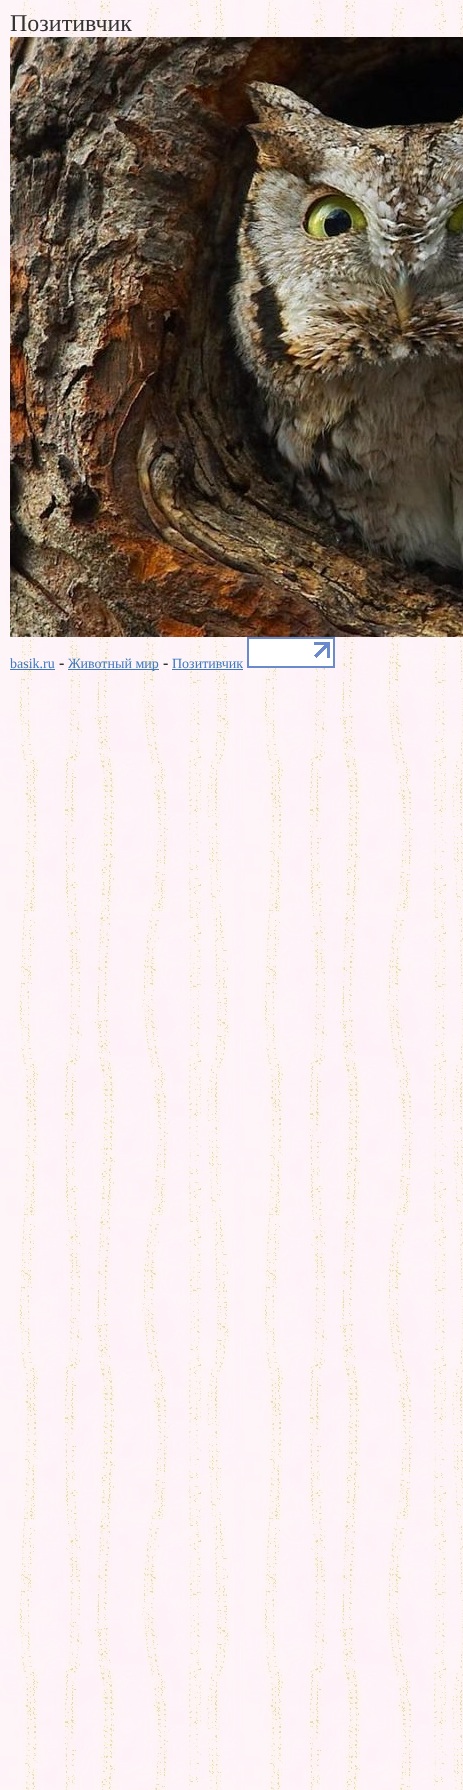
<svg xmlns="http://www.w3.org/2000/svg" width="463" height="1790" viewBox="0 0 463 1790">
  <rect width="100%" height="100%" fill="#ffffff"/>
  <image x="0" y="0" width="463" height="1790" href="img1.png"/>
  <text x="10" y="31" font-family="Liberation Serif" font-size="24" fill="#333333">Позитивчик</text>
  <image x="10" y="37" width="453" height="600" href="img2.png"/>
  <text x="10" y="668" font-family="Liberation Serif" font-size="14" fill="#3d78c0">basik.ru</text>
  <rect x="10" y="669" width="45" height="1" fill="#3d78c0"/>
  <text x="59" y="668" font-family="Liberation Serif" font-size="16" fill="#000000">-</text>
  <rect x="68" y="669" width="91" height="1" fill="#3d78c0"/>
  <text x="68" y="668" font-family="Liberation Serif" font-size="14" fill="#3d78c0">Животный мир</text>
  <text x="163" y="668" font-family="Liberation Serif" font-size="16" fill="#000000">-</text>
  <text x="172" y="668" font-family="Liberation Serif" font-size="14" fill="#3d78c0">Позитивчик</text>
  <rect x="172" y="669" width="71" height="1" fill="#3d78c0"/>
  <image x="247" y="637" width="88" height="31" href="img3.png"/>
</svg>
